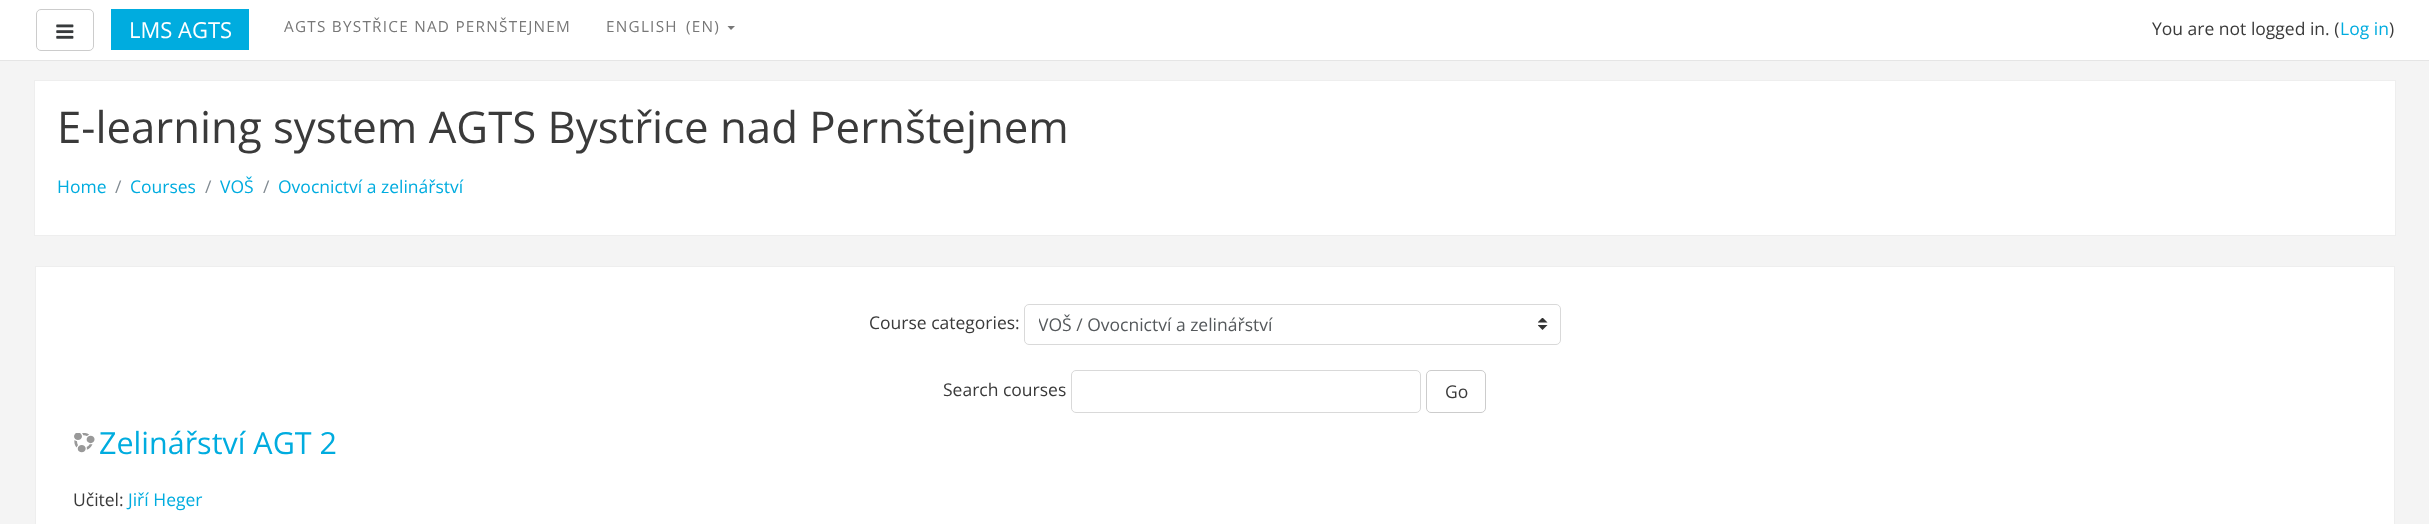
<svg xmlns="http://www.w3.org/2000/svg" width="2429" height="524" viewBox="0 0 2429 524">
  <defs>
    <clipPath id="clip1"><rect x="1039" y="311" width="491" height="27"/></clipPath>
  </defs>
  <rect width="100%" height="100%" fill="#f4f4f4"/>
  <rect x="0" y="0" width="2429" height="60" fill="#ffffff"/>
  <rect x="0" y="60" width="2429" height="1" fill="#e5e5e5"/>
  <rect x="36.5" y="9.5" width="57" height="41" rx="4.5" fill="none" stroke="#cccccc"/>
  <image x="56" y="24" width="18" height="15" href="img1.png"/>
  <rect x="111" y="9" width="138" height="41" fill="#00acdf"/>
  <text x="129" y="38" font-family="Open Sans" font-size="22" fill="#ffffff">LMS AGTS</text>
  <text x="284" y="32" font-family="Open Sans" font-size="15.3" letter-spacing="1.25" fill="#777777">AGTS BYSTŘICE NAD PERNŠTEJNEM</text>
  <text x="606" y="32" word-spacing="3" font-family="Open Sans" font-size="15.3" letter-spacing="1.25" fill="#777777">ENGLISH (EN)</text>
  <path d="M727.5 26H735L731 30Z" fill="#777777"/>
  <text x="2152" y="35" font-family="Open Sans" font-size="17.5" fill="#3a3a3a">You are not logged in. (</text>
  <text x="2340" y="35" font-family="Open Sans" font-size="17.5" fill="#00acdf">Log in</text>
  <text x="2389" y="35" font-family="Open Sans" font-size="17.5" fill="#3a3a3a">)</text>
  <rect x="34.5" y="80.5" width="2361" height="155" fill="#ffffff" stroke="#eeeeee"/>
  <text x="57" y="143" font-family="Open Sans" font-size="43.75" fill="#3a3a3a">E-learning system AGTS Bystřice nad Pernštejnem</text>
  <text x="57" y="193" font-family="Open Sans" font-size="17.5" fill="#00acdf">Home</text>
  <text x="115" y="193" font-family="Open Sans" font-size="17.5" fill="#818a91">/</text>
  <text x="130" y="193" font-family="Open Sans" font-size="17.5" fill="#00acdf">Courses</text>
  <text x="205" y="193" font-family="Open Sans" font-size="17.5" fill="#818a91">/</text>
  <text x="220" y="193" font-family="Open Sans" font-size="17.5" fill="#00acdf">VOŠ</text>
  <text x="263" y="193" font-family="Open Sans" font-size="17.5" fill="#818a91">/</text>
  <text x="278" y="193" font-family="Open Sans" font-size="17.5" fill="#00acdf">Ovocnictví a zelinářství</text>
  <rect x="35.5" y="266.5" width="2359" height="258" fill="#ffffff" stroke="#eeeeee"/>
  <text x="869" y="329" font-family="Open Sans" font-size="17.5" fill="#3a3a3a">Course categories:</text>
  <image x="1538" y="318" width="10" height="12" href="img2.png"/>
  <rect x="1024.5" y="304.5" width="536" height="40" rx="4.5" fill="none" stroke="#d9d9d9"/>
  <g clip-path="url(#clip1)">
    <text x="1038" y="331" font-family="Open Sans" font-size="17.5" fill="#55595c">VOŠ / Ovocnictví a zelinářství</text>
  </g>
  <text x="943" y="396" font-family="Open Sans" font-size="17.5" fill="#3a3a3a">Search courses</text>
  <rect x="1071.5" y="370.5" width="349" height="42" rx="4.5" fill="none" stroke="#d9d9d9"/>
  <rect x="1426.5" y="370.5" width="59" height="42" rx="4.5" fill="none" stroke="#cccccc"/>
  <text x="1445" y="398" font-family="Open Sans" font-size="17.5" fill="#3a3a3a">Go</text>
  <image x="74" y="433" width="21" height="20" href="img3.png"/>
  <text x="99" y="454" font-family="Open Sans" font-size="30.5" fill="#00acdf">Zelinářství AGT 2</text>
  <text x="73" y="506" font-family="Open Sans" font-size="17.5" fill="#3a3a3a">Učitel:</text>
  <text x="128" y="506" font-family="Open Sans" font-size="17.5" fill="#00acdf">Jiří Heger</text>
</svg>
